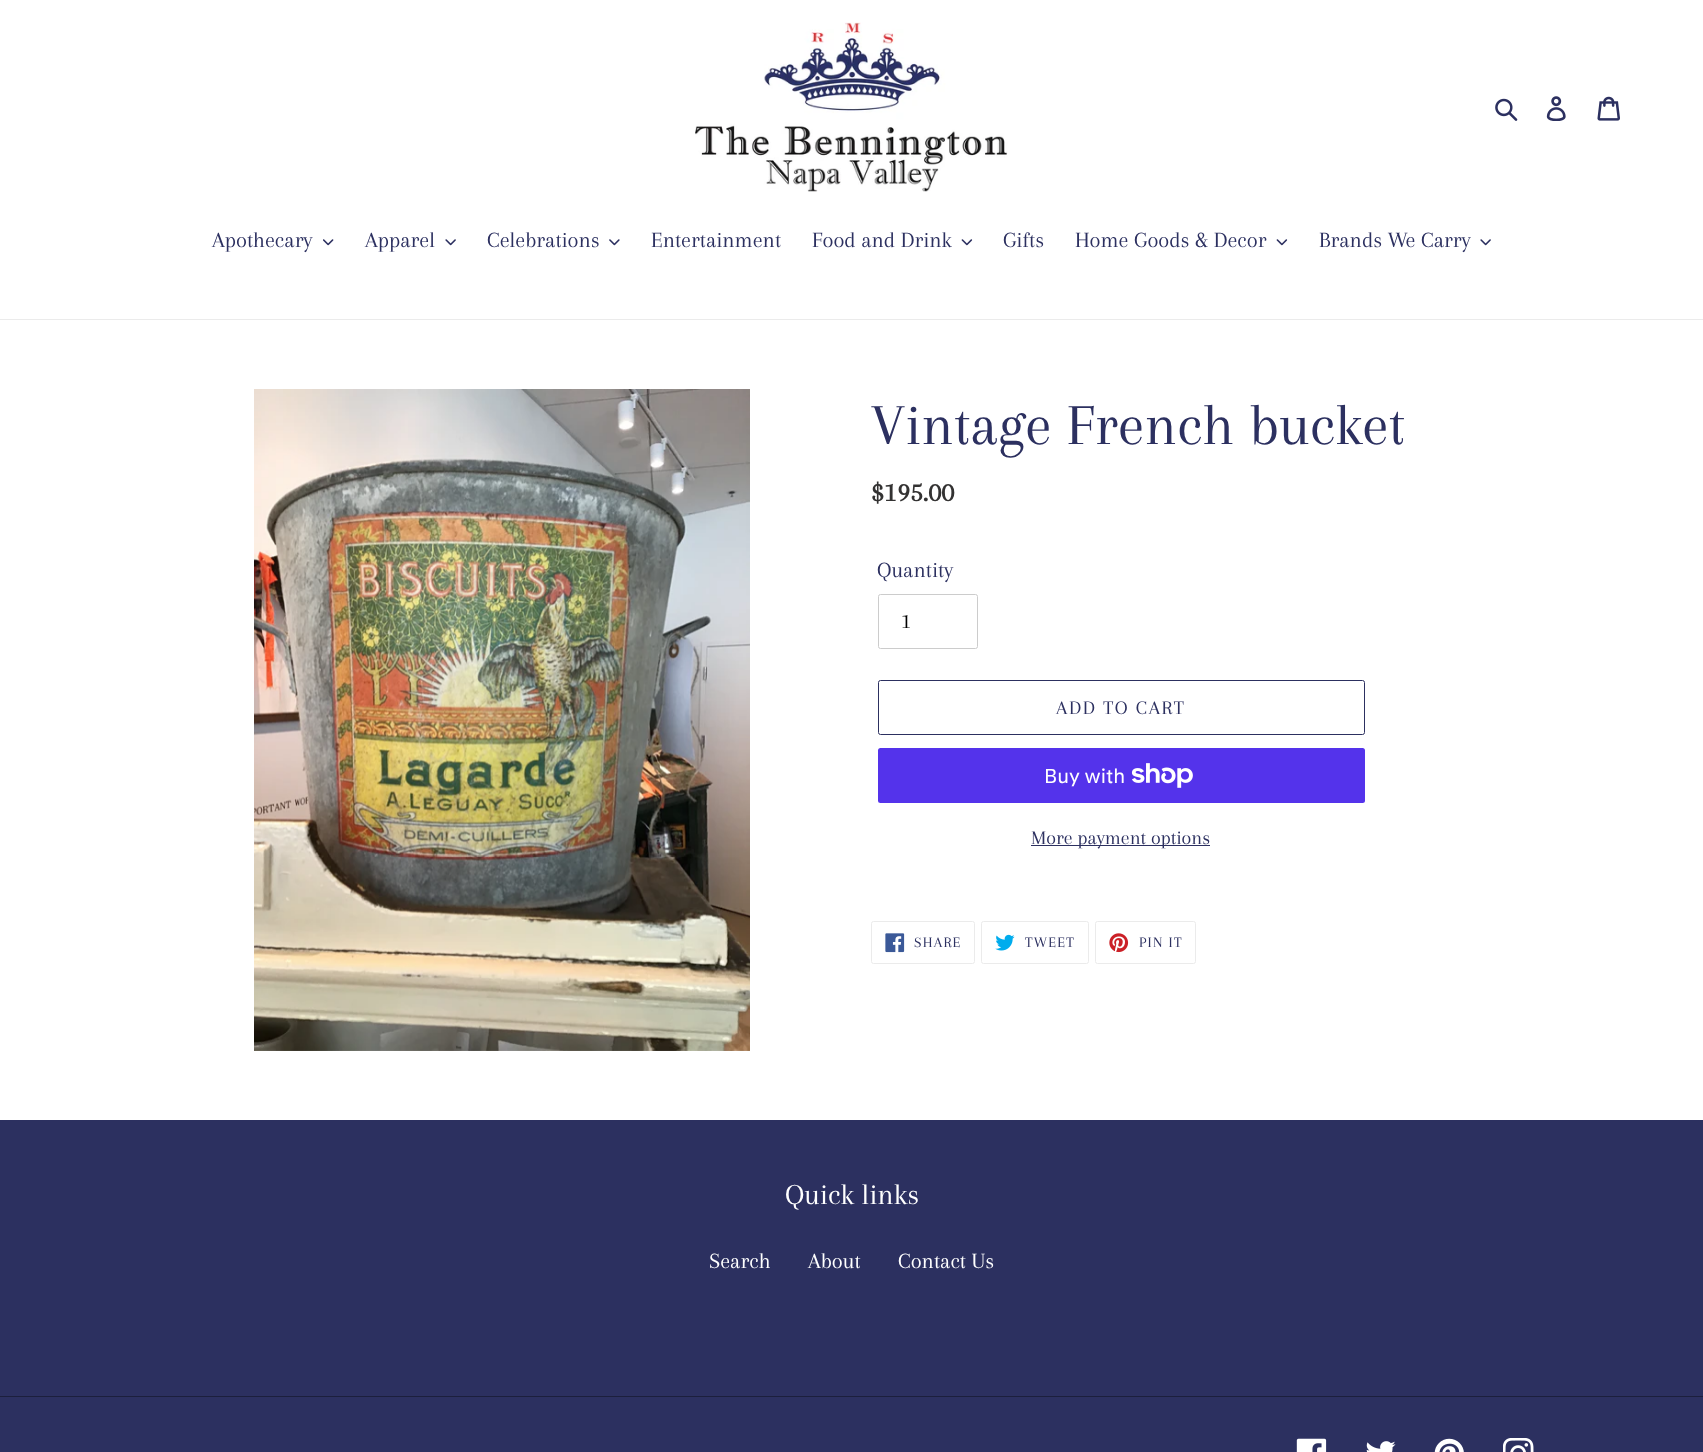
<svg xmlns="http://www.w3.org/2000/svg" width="1703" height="1452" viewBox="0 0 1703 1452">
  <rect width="100%" height="100%" fill="#ffffff"/>
  <image x="695" y="22" width="313" height="170" href="img1.png"/>
  <image x="1495" y="98" width="23" height="23" href="img2.png"/>
  <image x="1546" y="96" width="20" height="25" href="img3.png"/>
  <image x="1597" y="96" width="23" height="25" href="img4.png"/>
  <rect x="0" y="319" width="1703" height="1" fill="#ebebeb"/>
  <text x="212" y="247" font-family="Arapey" font-size="22.5" fill="#2c3060">Apothecary</text>
  <image x="323" y="239" width="11" height="7" href="img5.png"/>
  <text x="365" y="247" font-family="Arapey" font-size="22.5" fill="#2c3060">Apparel</text>
  <image x="445" y="239" width="11" height="7" href="img6.png"/>
  <text x="487" y="247" font-family="Arapey" font-size="22.5" fill="#2c3060">Celebrations</text>
  <image x="609" y="239" width="11" height="7" href="img7.png"/>
  <text x="651" y="247" font-family="Arapey" font-size="22.5" fill="#2c3060">Entertainment</text>
  <text x="812" y="247" font-family="Arapey" font-size="22.5" fill="#2c3060">Food and Drink</text>
  <image x="961" y="239" width="12" height="7" href="img8.png"/>
  <text x="1003" y="247" font-family="Arapey" font-size="22.5" fill="#2c3060">Gifts</text>
  <text x="1075" y="247" font-family="Arapey" font-size="22.5" fill="#2c3060">Home Goods &amp; Decor</text>
  <image x="1276" y="239" width="12" height="7" href="img8.png"/>
  <text x="1319" y="247" font-family="Arapey" font-size="22.5" fill="#2c3060">Brands We Carry</text>
  <image x="1480" y="239" width="11" height="7" href="img6.png"/>
  <image x="254" y="389" width="496" height="662" href="img9.png"/>
  <text x="871" y="444" font-family="Arapey" font-size="60" fill="#2c3060">Vintage French bucket</text>
  <text x="871" y="501" font-family="Arapey" font-size="28" font-weight="bold" fill="#333232">$195.00</text>
  <text x="877" y="577" font-family="Arapey" font-size="22.5" fill="#2c3060">Quantity</text>
  <rect x="878.5" y="594.5" width="99" height="54" rx="2" fill="none" stroke="#cccccc"/>
  <text x="901" y="628" font-family="Arapey" font-size="22.5" fill="#000000">1</text>
  <rect x="878.5" y="680.5" width="486" height="54" rx="2" fill="none" stroke="#2c3060"/>
  <text x="1056" y="714" font-family="Arapey" font-size="20" letter-spacing="1.6" fill="#2c3060">ADD TO CART</text>
  <rect x="878" y="748" width="487" height="55" rx="2.5" fill="#5433eb"/>
  <text x="1044" y="783" font-family="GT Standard" font-size="20" fill="#ffffff">Buy with</text>
  <image x="1131" y="763" width="62" height="25" href="img10.png"/>
  <rect x="1031" y="845" width="179" height="1" fill="#2c3060"/>
  <text x="1031" y="844" font-family="Arapey" font-size="20" fill="#2c3060">More payment options</text>
  <rect x="871.5" y="921.5" width="103" height="42" rx="2" fill="none" stroke="#ebebeb"/>
  <image x="885" y="933" width="20" height="20" href="img11.png"/>
  <text x="914" y="947" font-family="Arapey" font-size="15" letter-spacing="1.25" fill="#2c3060">SHARE</text>
  <rect x="981.5" y="921.5" width="107" height="42" rx="2" fill="none" stroke="#ebebeb"/>
  <image x="995" y="934" width="20" height="17" href="img12.png"/>
  <text x="1025" y="947" font-family="Arapey" font-size="15" letter-spacing="1.25" fill="#2c3060">TWEET</text>
  <rect x="1095.5" y="921.5" width="100" height="42" rx="2" fill="none" stroke="#ebebeb"/>
  <image x="1109" y="933" width="20" height="20" href="img13.png"/>
  <text x="1139" y="947" font-family="Arapey" font-size="15" letter-spacing="1.25" fill="#2c3060">PIN IT</text>
  <rect x="0" y="1120" width="1703" height="332" fill="#2c3060"/>
  <text x="785" y="1204" font-family="Arapey" font-size="30" fill="#ffffff">Quick links</text>
  <text x="709" y="1268" font-family="Arapey" font-size="22.5" fill="#ffffff">Search</text>
  <text x="808" y="1268" font-family="Arapey" font-size="22.5" fill="#ffffff">About</text>
  <text x="898" y="1268" font-family="Arapey" font-size="22.5" fill="#ffffff">Contact Us</text>
  <rect x="0" y="1396" width="1703" height="1" fill="#1c1f3d"/>
  <image x="1296" y="1438" width="31" height="14" href="img14.png"/>
  <image x="1366" y="1441" width="30" height="11" href="img15.png"/>
  <image x="1434" y="1438" width="30" height="14" href="img16.png"/>
  <image x="1503" y="1438" width="31" height="14" href="img17.png"/>
</svg>
